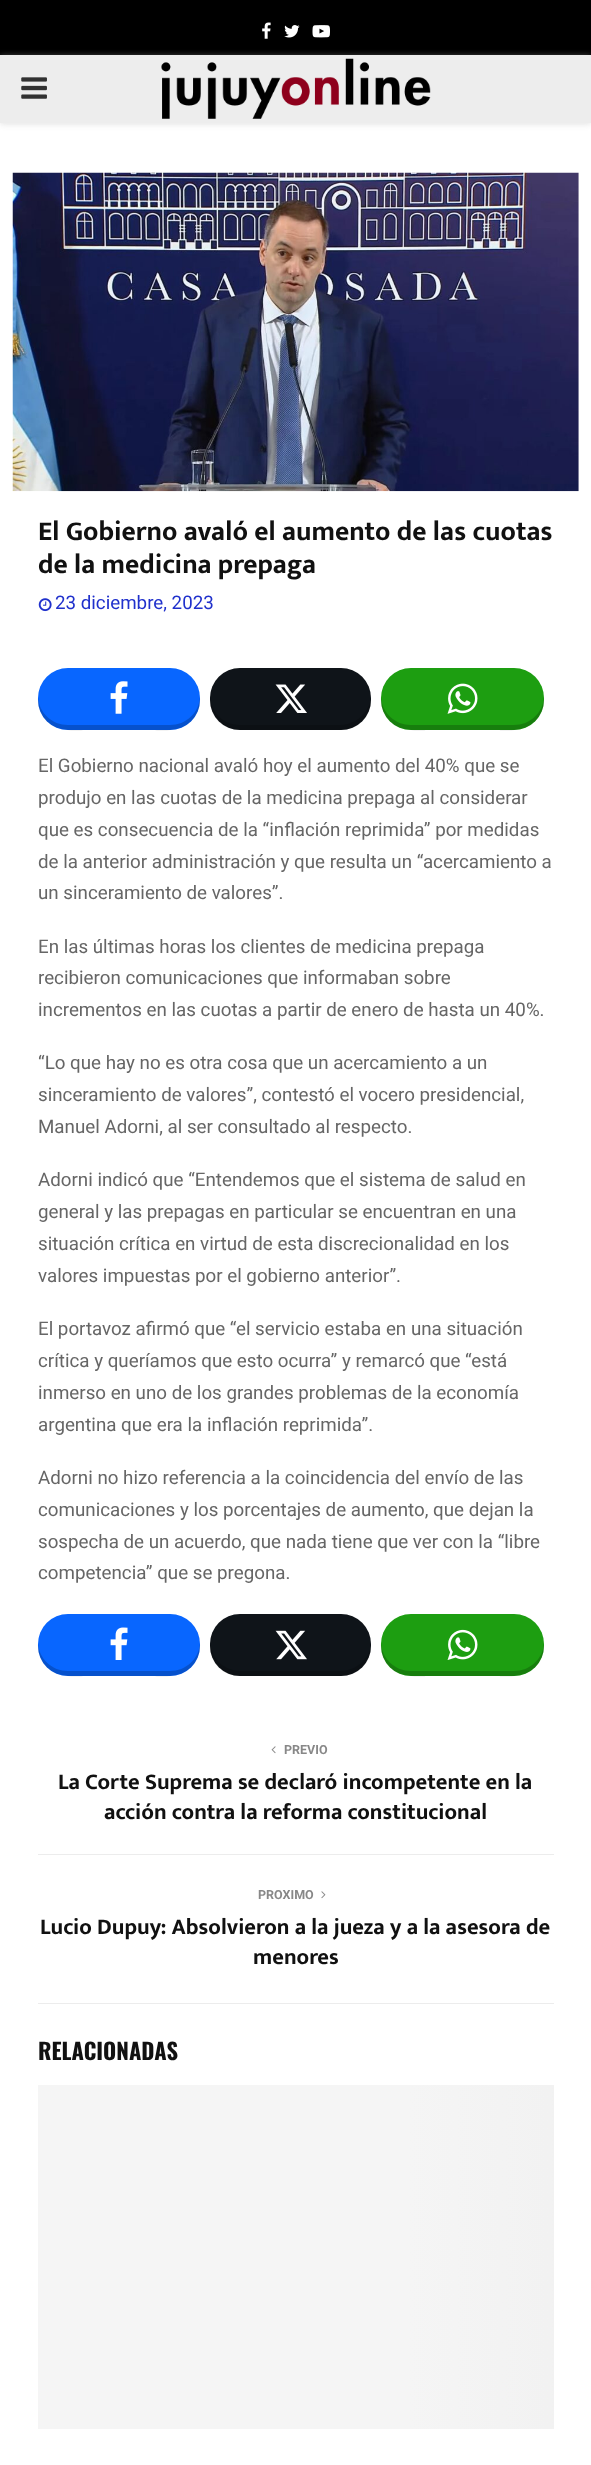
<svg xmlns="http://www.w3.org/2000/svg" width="591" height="2465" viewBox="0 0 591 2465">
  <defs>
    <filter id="blur1" x="-50%" y="-200%" width="200%" height="500%"><feGaussianBlur stdDeviation="3"/></filter>
    <linearGradient id="g1" gradientUnits="userSpaceOnUse" x1="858" y1="2257" x2="-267" y2="2257"><stop offset="0" stop-color="#f5f5f5"/><stop offset="0.15" stop-color="#efefef"/><stop offset="0.4" stop-color="#f5f5f5"/><stop offset="1" stop-color="#f5f5f5"/></linearGradient>
  </defs>
  <rect width="100%" height="100%" fill="#ffffff"/>
  <rect x="0" y="0" width="591" height="55" fill="#000000"/>
  <image x="262" y="22" width="9" height="17" href="img1.png"/>
  <image x="284" y="25" width="16" height="13" href="img2.png"/>
  <image x="312" y="25" width="18" height="13" href="img3.png"/>
  <rect x="0" y="56" width="591" height="68" fill="#bebebe" fill-opacity="0.46" filter="url(#blur1)"/>
  <rect x="0" y="55" width="591" height="68" fill="#ededed"/>
  <image x="21" y="77" width="26" height="22" href="img4.png"/>
  <image x="161" y="58" width="270" height="61" href="img5.png"/>
  <image x="12" y="172" width="567" height="320" href="img6.png"/>
  <text x="38" y="540" font-family="Mukta Vaani" font-size="27.5" font-weight="bold" fill="#111111">El Gobierno avaló el aumento de las cuotas</text>
  <text x="38" y="573" font-family="Mukta Vaani" font-size="27.5" font-weight="bold" fill="#111111">de la medicina prepaga</text>
  <image x="38" y="598" width="14" height="14" href="img7.png"/>
  <text x="55" y="609" font-family="Roboto" font-size="18.75" fill="#2031cc">23 diciembre, 2023</text>
  <rect x="38" y="668" width="162" height="62" rx="30" fill="#0866ff"/>
  <path d="M38 697C37 712 46 726 62 729C68 731 82 730 85 730H153C156 730 170 731 176 729C192 726 201 712 200 697C199 713 186 725 170 725H68C52 725 39 713 38 697Z" fill="#000000" fill-opacity="0.2"/>
  <image x="110" y="681" width="18" height="33" href="img8.png"/>
  <rect x="210" y="668" width="161" height="62" rx="30" fill="#0f1419"/>
  <path d="M210 693V700C210 717 223 730 240 730H341C358 730 371 717 371 700V699C368 712 358 724 341 725H240C220 725 210 709 210 693Z" fill="#000000" fill-opacity="0.2"/>
  <image x="275" y="684" width="32" height="29" href="img9.png"/>
  <rect x="381" y="668" width="163" height="62" rx="30" fill="#1d9e11"/>
  <path d="M381 697C380 712 389 726 405 729C411 731 426 730 428 730H497C499 730 514 731 520 729C536 726 545 712 544 697C543 713 530 725 514 725H411C395 725 382 713 381 697Z" fill="#000000" fill-opacity="0.2"/>
  <image x="447" y="683" width="31" height="31" href="img10.png"/>
  <text x="38" y="772" font-family="Roboto" font-size="18.75" fill="#666666">El Gobierno nacional avaló hoy el aumento del 40% que se</text>
  <text x="38" y="804" font-family="Roboto" font-size="18.75" fill="#666666">produjo en las cuotas de la medicina prepaga al considerar</text>
  <text x="38" y="836" font-family="Roboto" font-size="18.75" fill="#666666">que es consecuencia de la “inflación reprimida” por medidas</text>
  <text x="38" y="868" font-family="Roboto" font-size="18.75" fill="#666666">de la anterior administración y que resulta un “acercamiento a</text>
  <text x="38" y="899" font-family="Roboto" font-size="18.75" fill="#666666">un sinceramiento de valores”.</text>
  <text x="38" y="953" font-family="Roboto" font-size="18.75" fill="#666666">En las últimas horas los clientes de medicina prepaga</text>
  <text x="38" y="984" font-family="Roboto" font-size="18.75" fill="#666666">recibieron comunicaciones que informaban sobre</text>
  <text x="38" y="1016" font-family="Roboto" font-size="18.75" fill="#666666">incrementos en las cuotas a partir de enero de hasta un 40%.</text>
  <text x="38" y="1069" font-family="Roboto" font-size="18.75" fill="#666666">“Lo que hay no es otra cosa que un acercamiento a un</text>
  <text x="38" y="1101" font-family="Roboto" font-size="18.75" fill="#666666">sinceramiento de valores”, contestó el vocero presidencial,</text>
  <text x="38" y="1133" font-family="Roboto" font-size="18.75" fill="#666666">Manuel Adorni, al ser consultado al respecto.</text>
  <text x="38" y="1186" font-family="Roboto" font-size="18.75" fill="#666666">Adorni indicó que “Entendemos que el sistema de salud en</text>
  <text x="38" y="1218" font-family="Roboto" font-size="18.75" fill="#666666">general y las prepagas en particular se encuentran en una</text>
  <text x="38" y="1250" font-family="Roboto" font-size="18.75" fill="#666666">situación crítica en virtud de esta discrecionalidad en los</text>
  <text x="38" y="1282" font-family="Roboto" font-size="18.75" fill="#666666">valores impuestas por el gobierno anterior”.</text>
  <text x="38" y="1335" font-family="Roboto" font-size="18.75" fill="#666666">El portavoz afirmó que “el servicio estaba en una situación</text>
  <text x="38" y="1367" font-family="Roboto" font-size="18.75" fill="#666666">crítica y queríamos que esto ocurra” y remarcó que “está</text>
  <text x="38" y="1399" font-family="Roboto" font-size="18.75" fill="#666666">inmerso en uno de los grandes problemas de la economía</text>
  <text x="38" y="1431" font-family="Roboto" font-size="18.75" fill="#666666">argentina que era la inflación reprimida”.</text>
  <text x="38" y="1484" font-family="Roboto" font-size="18.75" fill="#666666">Adorni no hizo referencia a la coincidencia del envío de las</text>
  <text x="38" y="1516" font-family="Roboto" font-size="18.75" fill="#666666">comunicaciones y los porcentajes de aumento, que dejan la</text>
  <text x="38" y="1548" font-family="Roboto" font-size="18.75" fill="#666666">sospecha de un acuerdo, que nada tiene que ver con la “libre</text>
  <text x="38" y="1579" font-family="Roboto" font-size="18.75" fill="#666666">competencia” que se pregona.</text>
  <rect x="38" y="1614" width="162" height="62" rx="30" fill="#0866ff"/>
  <path d="M38 1643C37 1658 46 1672 62 1675C68 1677 82 1676 85 1676H153C156 1676 170 1677 176 1675C192 1672 201 1658 200 1643C199 1659 186 1671 170 1671H68C52 1671 39 1659 38 1643Z" fill="#000000" fill-opacity="0.2"/>
  <image x="110" y="1627" width="18" height="33" href="img11.png"/>
  <rect x="210" y="1614" width="161" height="62" rx="30" fill="#0f1419"/>
  <path d="M210 1639V1646C210 1663 223 1676 240 1676H341C358 1676 371 1663 371 1646C368 1659 358 1670 341 1671H240C220 1670 210 1655 210 1639Z" fill="#000000" fill-opacity="0.2"/>
  <image x="275" y="1630" width="32" height="30" href="img12.png"/>
  <rect x="381" y="1614" width="163" height="62" rx="30" fill="#1d9e11"/>
  <path d="M381 1643C380 1658 389 1672 405 1675C411 1677 426 1676 428 1676H497C499 1676 514 1677 520 1675C536 1672 545 1658 544 1643C543 1659 530 1671 514 1671H411C395 1671 382 1659 381 1643Z" fill="#000000" fill-opacity="0.2"/>
  <image x="447" y="1629" width="31" height="31" href="img13.png"/>
  <rect x="38" y="2003" width="516" height="1" fill="#ececec"/>
  <image x="271" y="1746" width="5" height="8" href="img14.png"/>
  <text x="284" y="1754" font-family="Roboto" font-size="12.5" font-weight="bold" fill="#888888">PREVIO</text>
  <text x="58" y="1789" font-family="Mukta Vaani" font-size="22.5" font-weight="bold" fill="#111111">La Corte Suprema se declaró incompetente en la</text>
  <text x="104" y="1819" font-family="Mukta Vaani" font-size="22.5" font-weight="bold" fill="#111111">acción contra la reforma constitucional</text>
  <rect x="38" y="1854" width="516" height="1" fill="#ececec"/>
  <text x="258" y="1899" font-family="Roboto" font-size="12.5" font-weight="bold" fill="#888888">PROXIMO</text>
  <image x="321" y="1891" width="5" height="8" href="img15.png"/>
  <text x="40" y="1934" font-family="Mukta Vaani" font-size="22.5" font-weight="bold" fill="#111111">Lucio Dupuy: Absolvieron a la jueza y a la asesora de</text>
  <text x="253" y="1964" font-family="Mukta Vaani" font-size="22.5" font-weight="bold" fill="#111111">menores</text>
  <text x="38" y="2060" font-family="Oswald" font-size="22.5" font-weight="bold" fill="#111111">RELACIONADAS</text>
  <rect x="38" y="2085" width="516" height="344" fill="url(#g1)"/>
</svg>
